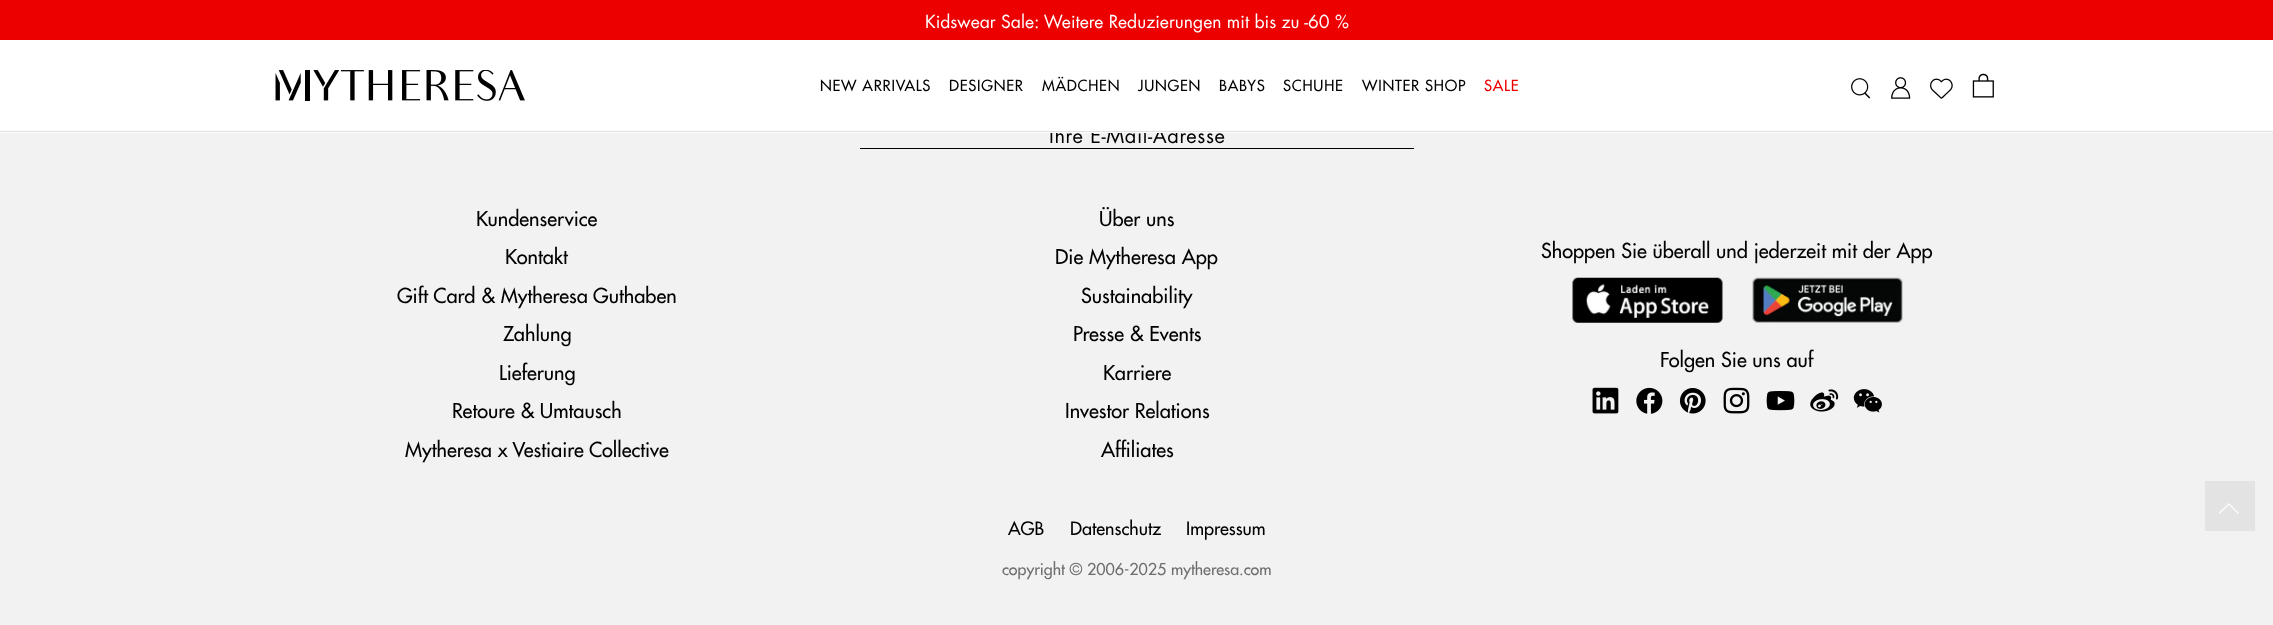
<svg xmlns="http://www.w3.org/2000/svg" width="2273" height="625" viewBox="0 0 2273 625">
  <rect width="100%" height="100%" fill="#f2f2f2"/>
  <rect x="0" y="0" width="2273" height="40" fill="#ed0000"/>
  <text x="925" y="28" font-family="Futura" font-size="17.5" fill="#ffffff">Kidswear Sale: Weitere Reduzierungen mit bis zu -60 %</text>
  <text x="1049" y="143" font-family="Futura" font-size="20" letter-spacing="0.6" fill="#000000">Ihre E-Mail-Adresse</text>
  <rect x="0" y="40" width="2273" height="93" fill="#ffffff"/>
  <rect x="0" y="131" width="2273" height="1" fill="#dfdfdf"/>
  <image x="275" y="70" width="250" height="31" href="img1.png"/>
  <text x="820" y="91" font-family="Futura" font-size="15" font-weight="500" letter-spacing="0.75" fill="#000000">NEW ARRIVALS</text>
  <text x="949" y="91" font-family="Futura" font-size="15" font-weight="500" letter-spacing="0.75" fill="#000000">DESIGNER</text>
  <text x="1042" y="91" font-family="Futura" font-size="15" font-weight="500" letter-spacing="0.75" fill="#000000">MÄDCHEN</text>
  <text x="1138" y="91" font-family="Futura" font-size="15" font-weight="500" letter-spacing="0.75" fill="#000000">JUNGEN</text>
  <text x="1219" y="91" font-family="Futura" font-size="15" font-weight="500" letter-spacing="0.75" fill="#000000">BABYS</text>
  <text x="1283" y="91" font-family="Futura" font-size="15" font-weight="500" letter-spacing="0.75" fill="#000000">SCHUHE</text>
  <text x="1362" y="91" font-family="Futura" font-size="15" font-weight="500" letter-spacing="0.75" fill="#000000">WINTER SHOP</text>
  <text x="1484" y="91" font-family="Futura" font-size="15" font-weight="500" letter-spacing="0.75" fill="#ed0000">SALE</text>
  <image x="1851" y="78" width="20" height="21" href="img2.png"/>
  <image x="1891" y="77" width="20" height="22" href="img3.png"/>
  <image x="1930" y="78" width="23" height="21" href="img4.png"/>
  <image x="1972" y="73" width="22" height="25" href="img5.png"/>
  <rect x="860" y="148" width="554" height="1" fill="#000000"/>
  <text x="476" y="226" font-family="Futura" font-size="20" font-weight="500" fill="#000000">Kundenservice</text>
  <text x="505" y="264" font-family="Futura" font-size="20" font-weight="500" fill="#000000">Kontakt</text>
  <text x="397" y="303" font-family="Futura" font-size="20" font-weight="500" fill="#000000">Gift Card &amp; Mytheresa Guthaben</text>
  <text x="503" y="341" font-family="Futura" font-size="20" font-weight="500" fill="#000000">Zahlung</text>
  <text x="499" y="380" font-family="Futura" font-size="20" font-weight="500" fill="#000000">Lieferung</text>
  <text x="452" y="418" font-family="Futura" font-size="20" font-weight="500" fill="#000000">Retoure &amp; Umtausch</text>
  <text x="405" y="457" font-family="Futura" font-size="20" font-weight="500" fill="#000000">Mytheresa x Vestiaire Collective</text>
  <text x="1099" y="226" font-family="Futura" font-size="20" font-weight="500" fill="#000000">Über uns</text>
  <text x="1055" y="264" font-family="Futura" font-size="20" font-weight="500" fill="#000000">Die Mytheresa App</text>
  <text x="1081" y="303" font-family="Futura" font-size="20" font-weight="500" fill="#000000">Sustainability</text>
  <text x="1073" y="341" font-family="Futura" font-size="20" font-weight="500" fill="#000000">Presse &amp; Events</text>
  <text x="1103" y="380" font-family="Futura" font-size="20" font-weight="500" fill="#000000">Karriere</text>
  <text x="1065" y="418" font-family="Futura" font-size="20" font-weight="500" fill="#000000">Investor Relations</text>
  <text x="1101" y="457" font-family="Futura" font-size="20" font-weight="500" fill="#000000">Affiliates</text>
  <text x="1541" y="258" font-family="Futura" font-size="20" font-weight="500" fill="#000000">Shoppen Sie überall und jederzeit mit der App</text>
  <image x="1572" y="277" width="151" height="46" href="img6.png"/>
  <image x="1752" y="277" width="151" height="46" href="img7.png"/>
  <text x="1660" y="367" font-family="Futura" font-size="20" font-weight="500" fill="#000000">Folgen Sie uns auf</text>
  <image x="1592" y="387" width="27" height="27" href="img8.png"/>
  <image x="1636" y="387" width="27" height="27" href="img9.png"/>
  <image x="1679" y="388" width="27" height="26" href="img10.png"/>
  <image x="1723" y="387" width="27" height="27" href="img11.png"/>
  <image x="1766" y="391" width="29" height="20" href="img12.png"/>
  <image x="1810" y="389" width="29" height="23" href="img13.png"/>
  <image x="1853" y="389" width="29" height="24" href="img14.png"/>
  <text x="1008" y="535" font-family="Futura" font-size="18" font-weight="500" fill="#000000">AGB</text>
  <text x="1070" y="535" font-family="Futura" font-size="18" font-weight="500" fill="#000000">Datenschutz</text>
  <text x="1186" y="535" font-family="Futura" font-size="18" font-weight="500" fill="#000000">Impressum</text>
  <text x="1002" y="575" font-family="Futura" font-size="16" font-weight="500" fill="#6e6e6e">copyright © 2006-2025 mytheresa.com</text>
  <rect x="2205" y="481" width="50" height="50" fill="#e3e3e3"/>
  <path d="M2239 513L2238 514L2229 505L2219.5 514L2218.5 513L2229 503Z" fill="#fcfcfc"/>
</svg>
